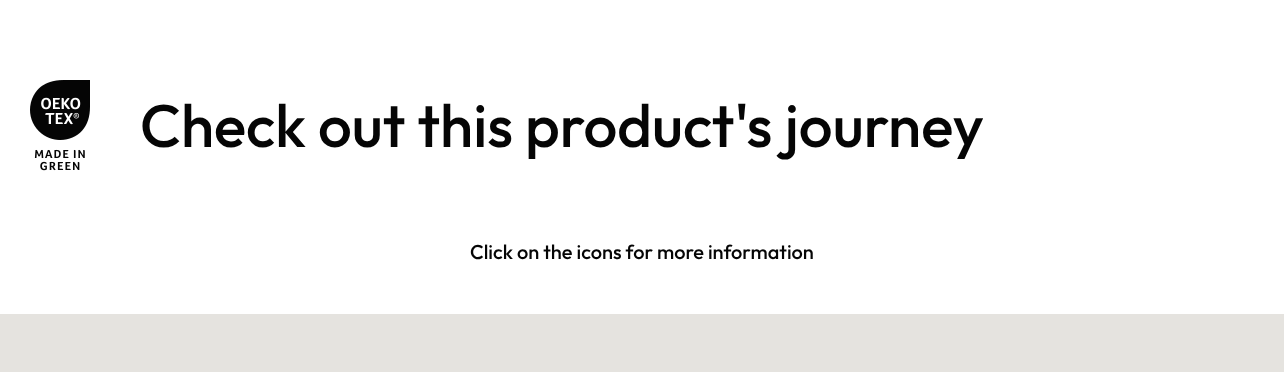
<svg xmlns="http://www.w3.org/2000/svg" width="1284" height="372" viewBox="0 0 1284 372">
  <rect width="100%" height="100%" fill="#ffffff"/>
  <image x="30" y="80" width="60" height="91" href="img1.png"/>
  <text x="140" y="147" font-family="Outfit" font-size="60" font-weight="100" fill="#050505">Check out this product's journey</text>
  <text x="470" y="259" font-family="Outfit" font-size="20" font-weight="100" fill="#050505">Click on the icons for more information</text>
  <rect x="0" y="314" width="1284" height="58" fill="#e5e3df"/>
</svg>
